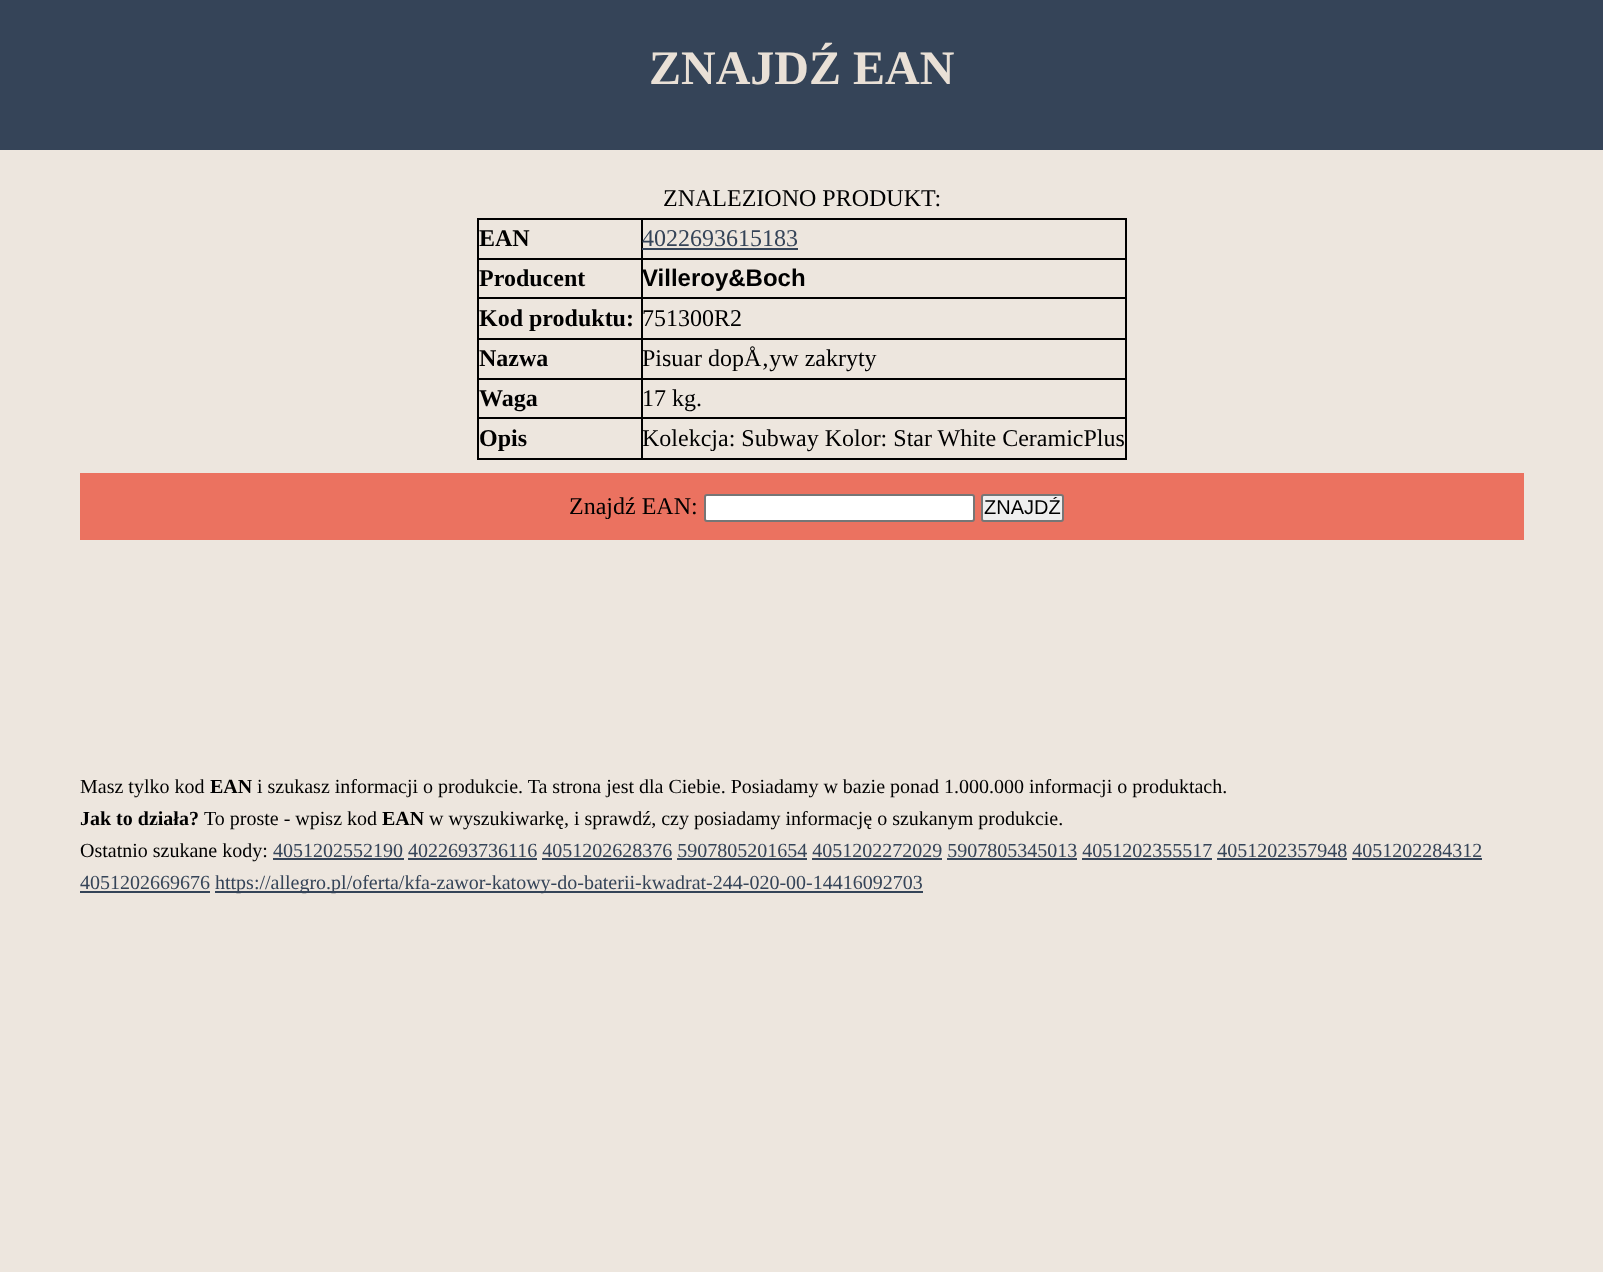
<svg xmlns="http://www.w3.org/2000/svg" width="1603" height="1272" viewBox="0 0 1603 1272">
  <defs>
    <clipPath id="clip1"><rect x="984" y="497" width="77" height="22"/></clipPath>
  </defs>
  <rect width="100%" height="100%" fill="#ede6de"/>
  <rect x="0" y="0" width="1603" height="150" fill="#354458"/>
  <text x="649" y="84" font-family="Liberation Serif" font-size="48" font-weight="bold" fill="#e9e0d6">ZNAJDŹ EAN</text>
  <text x="663" y="206" font-family="Liberation Serif" font-size="24" fill="#000000">ZNALEZIONO PRODUKT:</text>
  <rect x="477" y="218" width="650" height="2" fill="#000000"/>
  <rect x="1125" y="218" width="2" height="241" fill="#000000"/>
  <rect x="477" y="458" width="650" height="2" fill="#000000"/>
  <rect x="477" y="218" width="2" height="241" fill="#000000"/>
  <text x="479" y="246" font-family="Liberation Serif" font-size="24" font-weight="bold" fill="#000000">EAN</text>
  <rect x="641" y="258" width="486" height="2" fill="#000000"/>
  <rect x="641" y="297" width="486" height="2" fill="#000000"/>
  <rect x="641" y="338" width="486" height="2" fill="#000000"/>
  <rect x="641" y="378" width="486" height="2" fill="#000000"/>
  <rect x="641" y="417" width="486" height="2" fill="#000000"/>
  <rect x="641" y="417" width="2" height="42" fill="#000000"/>
  <rect x="477" y="417" width="165" height="2" fill="#000000"/>
  <rect x="641" y="378" width="2" height="41" fill="#000000"/>
  <rect x="477" y="378" width="165" height="2" fill="#000000"/>
  <rect x="641" y="338" width="2" height="42" fill="#000000"/>
  <rect x="477" y="338" width="165" height="2" fill="#000000"/>
  <rect x="641" y="297" width="2" height="42" fill="#000000"/>
  <rect x="477" y="297" width="165" height="2" fill="#000000"/>
  <rect x="641" y="258" width="2" height="41" fill="#000000"/>
  <rect x="477" y="258" width="165" height="2" fill="#000000"/>
  <rect x="641" y="218" width="2" height="42" fill="#000000"/>
  <text x="642" y="246" font-family="Liberation Serif" font-size="24" fill="#354458">4022693615183</text>
  <rect x="642" y="248" width="156" height="2" fill="#354458"/>
  <text x="479" y="286" font-family="Liberation Serif" font-size="24" font-weight="bold" fill="#000000">Producent</text>
  <text x="642" y="286" font-family="Liberation Sans" font-size="24" font-weight="bold" fill="#000000">Villeroy&amp;Boch</text>
  <text x="479" y="326" font-family="Liberation Serif" font-size="24" font-weight="bold" fill="#000000">Kod produktu:</text>
  <text x="642" y="326" font-family="Liberation Serif" font-size="24" fill="#000000">751300R2</text>
  <text x="479" y="366" font-family="Liberation Serif" font-size="24" font-weight="bold" fill="#000000">Nazwa</text>
  <text x="642" y="366" font-family="Liberation Serif" font-size="24" fill="#000000">Pisuar dopÅ‚yw zakryty</text>
  <text x="479" y="406" font-family="Liberation Serif" font-size="24" font-weight="bold" fill="#000000">Waga</text>
  <text x="642" y="406" font-family="Liberation Serif" font-size="24" fill="#000000">17 kg.</text>
  <text x="479" y="446" font-family="Liberation Serif" font-size="24" font-weight="bold" fill="#000000">Opis</text>
  <text x="642" y="446" font-family="Liberation Serif" font-size="24" fill="#000000">Kolekcja: Subway Kolor: Star White CeramicPlus</text>
  <rect x="80" y="473" width="1444" height="67" fill="#eb7260"/>
  <text x="569" y="514" font-family="Liberation Serif" font-size="24" fill="#000000">Znajdź EAN:</text>
  <rect x="705" y="495" width="269" height="26" rx="2" fill="#ffffff" stroke="#767676" stroke-width="2"/>
  <rect x="982" y="495" width="81" height="26" rx="2" fill="#efefef" stroke="#767676" stroke-width="2"/>
  <g clip-path="url(#clip1)">
    <text x="984" y="514" font-family="Liberation Sans" font-size="20" fill="#000000">ZNAJDŹ</text>
  </g>
  <text x="80" y="793" font-family="Liberation Serif" font-size="20" fill="#000000">Masz tylko kod</text>
  <text x="210" y="793" font-family="Liberation Serif" font-size="20" font-weight="bold" fill="#000000">EAN</text>
  <text x="257" y="793" font-family="Liberation Serif" font-size="20" fill="#000000">i szukasz informacji o produkcie. Ta strona jest dla Ciebie. Posiadamy w bazie ponad 1.000.000 informacji o produktach.</text>
  <text x="80" y="825" font-family="Liberation Serif" font-size="20" font-weight="bold" fill="#000000">Jak to działa?</text>
  <text x="204" y="825" font-family="Liberation Serif" font-size="20" fill="#000000">To proste - wpisz kod</text>
  <text x="382" y="825" font-family="Liberation Serif" font-size="20" font-weight="bold" fill="#000000">EAN</text>
  <text x="429" y="825" font-family="Liberation Serif" font-size="20" fill="#000000">w wyszukiwarkę, i sprawdź, czy posiadamy informację o szukanym produkcie.</text>
  <text x="80" y="857" font-family="Liberation Serif" font-size="20" fill="#000000">Ostatnio szukane kody:</text>
  <text x="273" y="857" font-family="Liberation Serif" font-size="20" fill="#354458">4051202552190 4022693736116 4051202628376 5907805201654 4051202272029 5907805345013 4051202355517 4051202357948 4051202284312</text>
  <rect x="273" y="858" width="131" height="2" fill="#354458"/>
  <rect x="408" y="858" width="129" height="2" fill="#354458"/>
  <rect x="542" y="858" width="130" height="2" fill="#354458"/>
  <rect x="677" y="858" width="130" height="2" fill="#354458"/>
  <rect x="812" y="858" width="130" height="2" fill="#354458"/>
  <rect x="947" y="858" width="130" height="2" fill="#354458"/>
  <rect x="1082" y="858" width="130" height="2" fill="#354458"/>
  <rect x="1217" y="858" width="130" height="2" fill="#354458"/>
  <rect x="1352" y="858" width="130" height="2" fill="#354458"/>
  <text x="80" y="889" font-family="Liberation Serif" font-size="20" fill="#354458">4051202669676</text>
  <rect x="80" y="891" width="130" height="2" fill="#354458"/>
  <rect x="215" y="891" width="708" height="2" fill="#354458"/>
  <text x="215" y="889" font-family="Liberation Serif" font-size="20" fill="#354458">https://allegro.pl/oferta/kfa-zawor-katowy-do-baterii-kwadrat-244-020-00-14416092703</text>
</svg>
